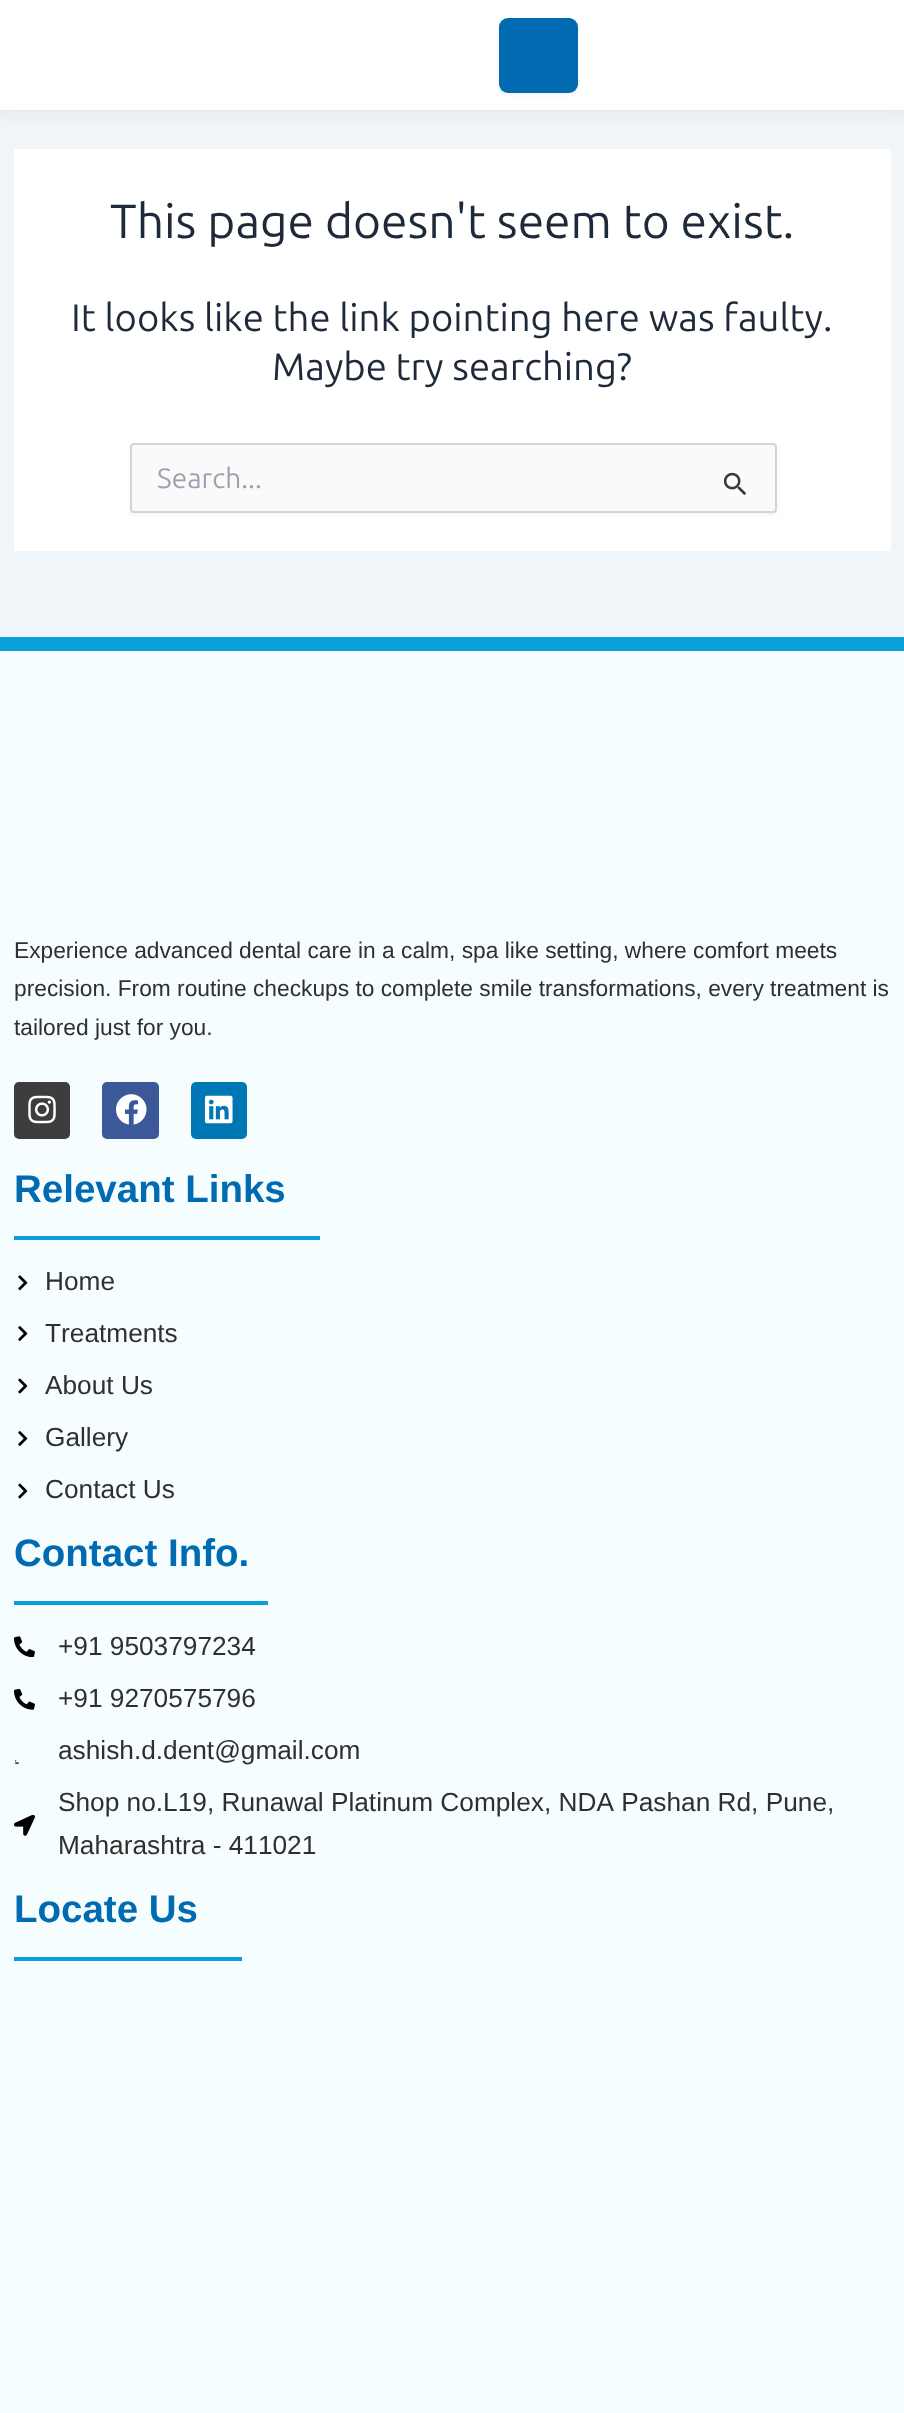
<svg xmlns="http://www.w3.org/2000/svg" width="904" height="2413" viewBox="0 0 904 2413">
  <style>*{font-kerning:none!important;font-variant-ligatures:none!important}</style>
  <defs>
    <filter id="blur1" x="-50%" y="-200%" width="200%" height="500%"><feGaussianBlur stdDeviation="9"/></filter>
    <filter id="blur2" x="-50%" y="-200%" width="200%" height="500%"><feGaussianBlur stdDeviation="2"/></filter>
  </defs>
  <rect width="100%" height="100%" fill="#f0f5fa"/>
  <rect x="0" y="0" width="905" height="110" fill="#493b22" fill-opacity="0.13" filter="url(#blur1)"/>
  <rect x="0" y="0" width="904" height="110" fill="#ffffff"/>
  <rect x="499" y="19" width="79" height="76" rx="9" fill="#000000" fill-opacity="0.05" filter="url(#blur2)"/>
  <rect x="499" y="18" width="79" height="75" rx="9" fill="#006bb1"/>
  <rect x="14" y="149" width="877" height="402" fill="#ffffff"/>
  <text x="110" y="238" font-family="Ubuntu" font-size="47.9" fill="#1e293b">This page doesn't seem to exist.</text>
  <text x="71" y="331" font-family="Ubuntu" font-size="38.25" fill="#1e293b">It looks like the link pointing here was faulty.</text>
  <text x="272" y="380" font-family="Ubuntu" font-size="38.25" fill="#1e293b">Maybe try searching?</text>
  <rect x="130" y="445" width="647" height="70" rx="4" fill="#000000" fill-opacity="0.05" filter="url(#blur2)"/>
  <rect x="131" y="444" width="645" height="68" rx="3" fill="#fafafa" stroke="#d1d5db" stroke-width="2"/>
  <text x="157" y="488" font-family="Ubuntu" font-size="28" fill="#9ca3af">Search...</text>
  <image x="723" y="472" width="24" height="24" href="img1.png"/>
  <rect x="0" y="651" width="904" height="1762" fill="#f6fdff"/>
  <rect x="0" y="637" width="904" height="14" fill="#09a0d9"/>
  <text x="14" y="958" font-family="Liberation Sans" font-size="22.75" fill="#2f2f2f">Experience advanced dental care in a calm, spa like setting, where comfort meets</text>
  <text x="14" y="996" font-family="Liberation Sans" font-size="22.75" fill="#2f2f2f">precision. From routine checkups to complete smile transformations, every treatment is</text>
  <text x="14" y="1035" font-family="Liberation Sans" font-size="22.75" fill="#2f2f2f">tailored just for you.</text>
  <rect x="14" y="1082" width="56" height="57" rx="5" fill="#3d3d3d"/>
  <image x="28" y="1095" width="28" height="29" href="img2.png"/>
  <rect x="102" y="1082" width="57" height="57" rx="5" fill="#3b5998"/>
  <image x="116" y="1094" width="31" height="31" href="img3.png"/>
  <rect x="191" y="1082" width="56" height="57" rx="5" fill="#0077b5"/>
  <image x="204" y="1095" width="29" height="29" href="img4.png"/>
  <text x="14" y="1202" font-family="Liberation Sans" font-size="38.5" font-weight="bold" fill="#006bb1">Relevant Links</text>
  <rect x="14" y="1236" width="306" height="4" fill="#09a0d9"/>
  <image x="18" y="1275" width="10" height="16" href="img5.png"/>
  <text x="45" y="1290" font-family="Liberation Sans" font-size="26.25" fill="#2f2f2f">Home</text>
  <image x="18" y="1326" width="10" height="15" href="img6.png"/>
  <text x="45" y="1342" font-family="Liberation Sans" font-size="26.25" fill="#2f2f2f">Treatments</text>
  <image x="18" y="1378" width="10" height="16" href="img7.png"/>
  <text x="45" y="1394" font-family="Liberation Sans" font-size="26.25" fill="#2f2f2f">About Us</text>
  <image x="18" y="1431" width="10" height="15" href="img6.png"/>
  <text x="45" y="1446" font-family="Liberation Sans" font-size="26.25" fill="#2f2f2f">Gallery</text>
  <image x="18" y="1483" width="10" height="16" href="img7.png"/>
  <text x="45" y="1498" font-family="Liberation Sans" font-size="26.25" fill="#2f2f2f">Contact Us</text>
  <text x="14" y="1566" font-family="Liberation Sans" font-size="38.5" font-weight="bold" fill="#006bb1">Contact Info.</text>
  <rect x="14" y="1601" width="254" height="4" fill="#09a0d9"/>
  <image x="14" y="1636" width="21" height="21" href="img8.png"/>
  <text x="58" y="1655" font-family="Liberation Sans" font-size="26.25" fill="#2f2f2f">+91 9503797234</text>
  <image x="14" y="1689" width="21" height="21" href="img9.png"/>
  <text x="58" y="1707" font-family="Liberation Sans" font-size="26.25" fill="#2f2f2f">+91 9270575796</text>
  <text x="21" y="1758" font-family="FreeSerif" font-size="21" direction="rtl" fill="#000000">﯁</text>
  <text x="58" y="1759" font-family="Liberation Sans" font-size="26.25" fill="#2f2f2f">ashish.d.dent@gmail.com</text>
  <image x="14" y="1815" width="21" height="21" href="img10.png"/>
  <text x="58" y="1811" font-family="Liberation Sans" font-size="26.25" fill="#2f2f2f">Shop no.L19, Runawal Platinum Complex, NDA Pashan Rd, Pune,</text>
  <text x="58" y="1854" font-family="Liberation Sans" font-size="26.25" fill="#2f2f2f">Maharashtra - 411021</text>
  <text x="14" y="1922" font-family="Liberation Sans" font-size="38.5" font-weight="bold" fill="#006bb1">Locate Us</text>
  <rect x="14" y="1957" width="228" height="4" fill="#09a0d9"/>
</svg>
